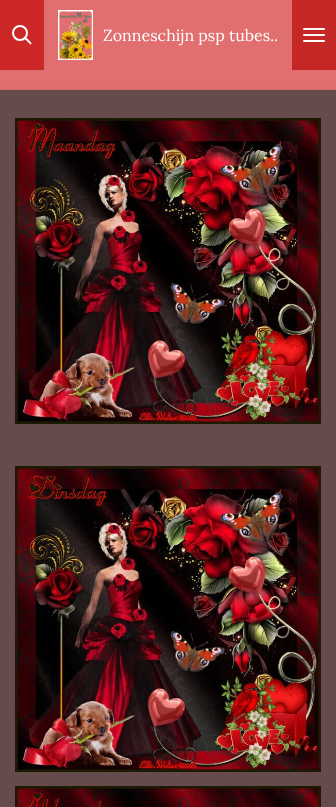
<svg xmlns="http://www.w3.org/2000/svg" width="336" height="807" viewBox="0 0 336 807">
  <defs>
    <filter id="blur1" x="-50%" y="-200%" width="200%" height="500%"><feGaussianBlur stdDeviation="2.5"/></filter>
  </defs>
  <rect width="100%" height="100%" fill="#e26f6f"/>
  <rect x="0" y="0" width="44" height="70" fill="#cd2828"/>
  <circle cx="20" cy="33" r="7" fill="none" stroke="#ffffff" stroke-width="2"/>
  <path d="M25 36.5C26 37.5 32.5 43 31.5 44C30.5 45.5 28.5 42.5 28 42L23.5 38Z" fill="#ffffff"/>
  <image x="58" y="10" width="35" height="50" href="img1.png"/>
  <text x="103" y="41" font-family="Lora" font-size="16" fill="#ffffff">Zonneschijn psp tubes..</text>
  <rect x="292" y="0" width="44" height="70" fill="#c52626"/>
  <rect x="303" y="34" width="22" height="2" rx="1" fill="#ffffff"/>
  <rect x="303" y="28" width="22" height="2" rx="1" fill="#ffffff"/>
  <rect x="303" y="40" width="22" height="2" rx="1" fill="#ffffff"/>
  <rect x="0" y="90" width="336" height="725" fill="#000000" fill-opacity="0.1" filter="url(#blur1)"/>
  <rect x="0" y="90" width="336" height="717" fill="#654b4b"/>
  <image x="15" y="118" width="306" height="306" href="img2.png"/>
  <image x="15" y="466" width="306" height="306" href="img3.png"/>
  <image x="15" y="786" width="306" height="21" href="img4.png"/>
</svg>
